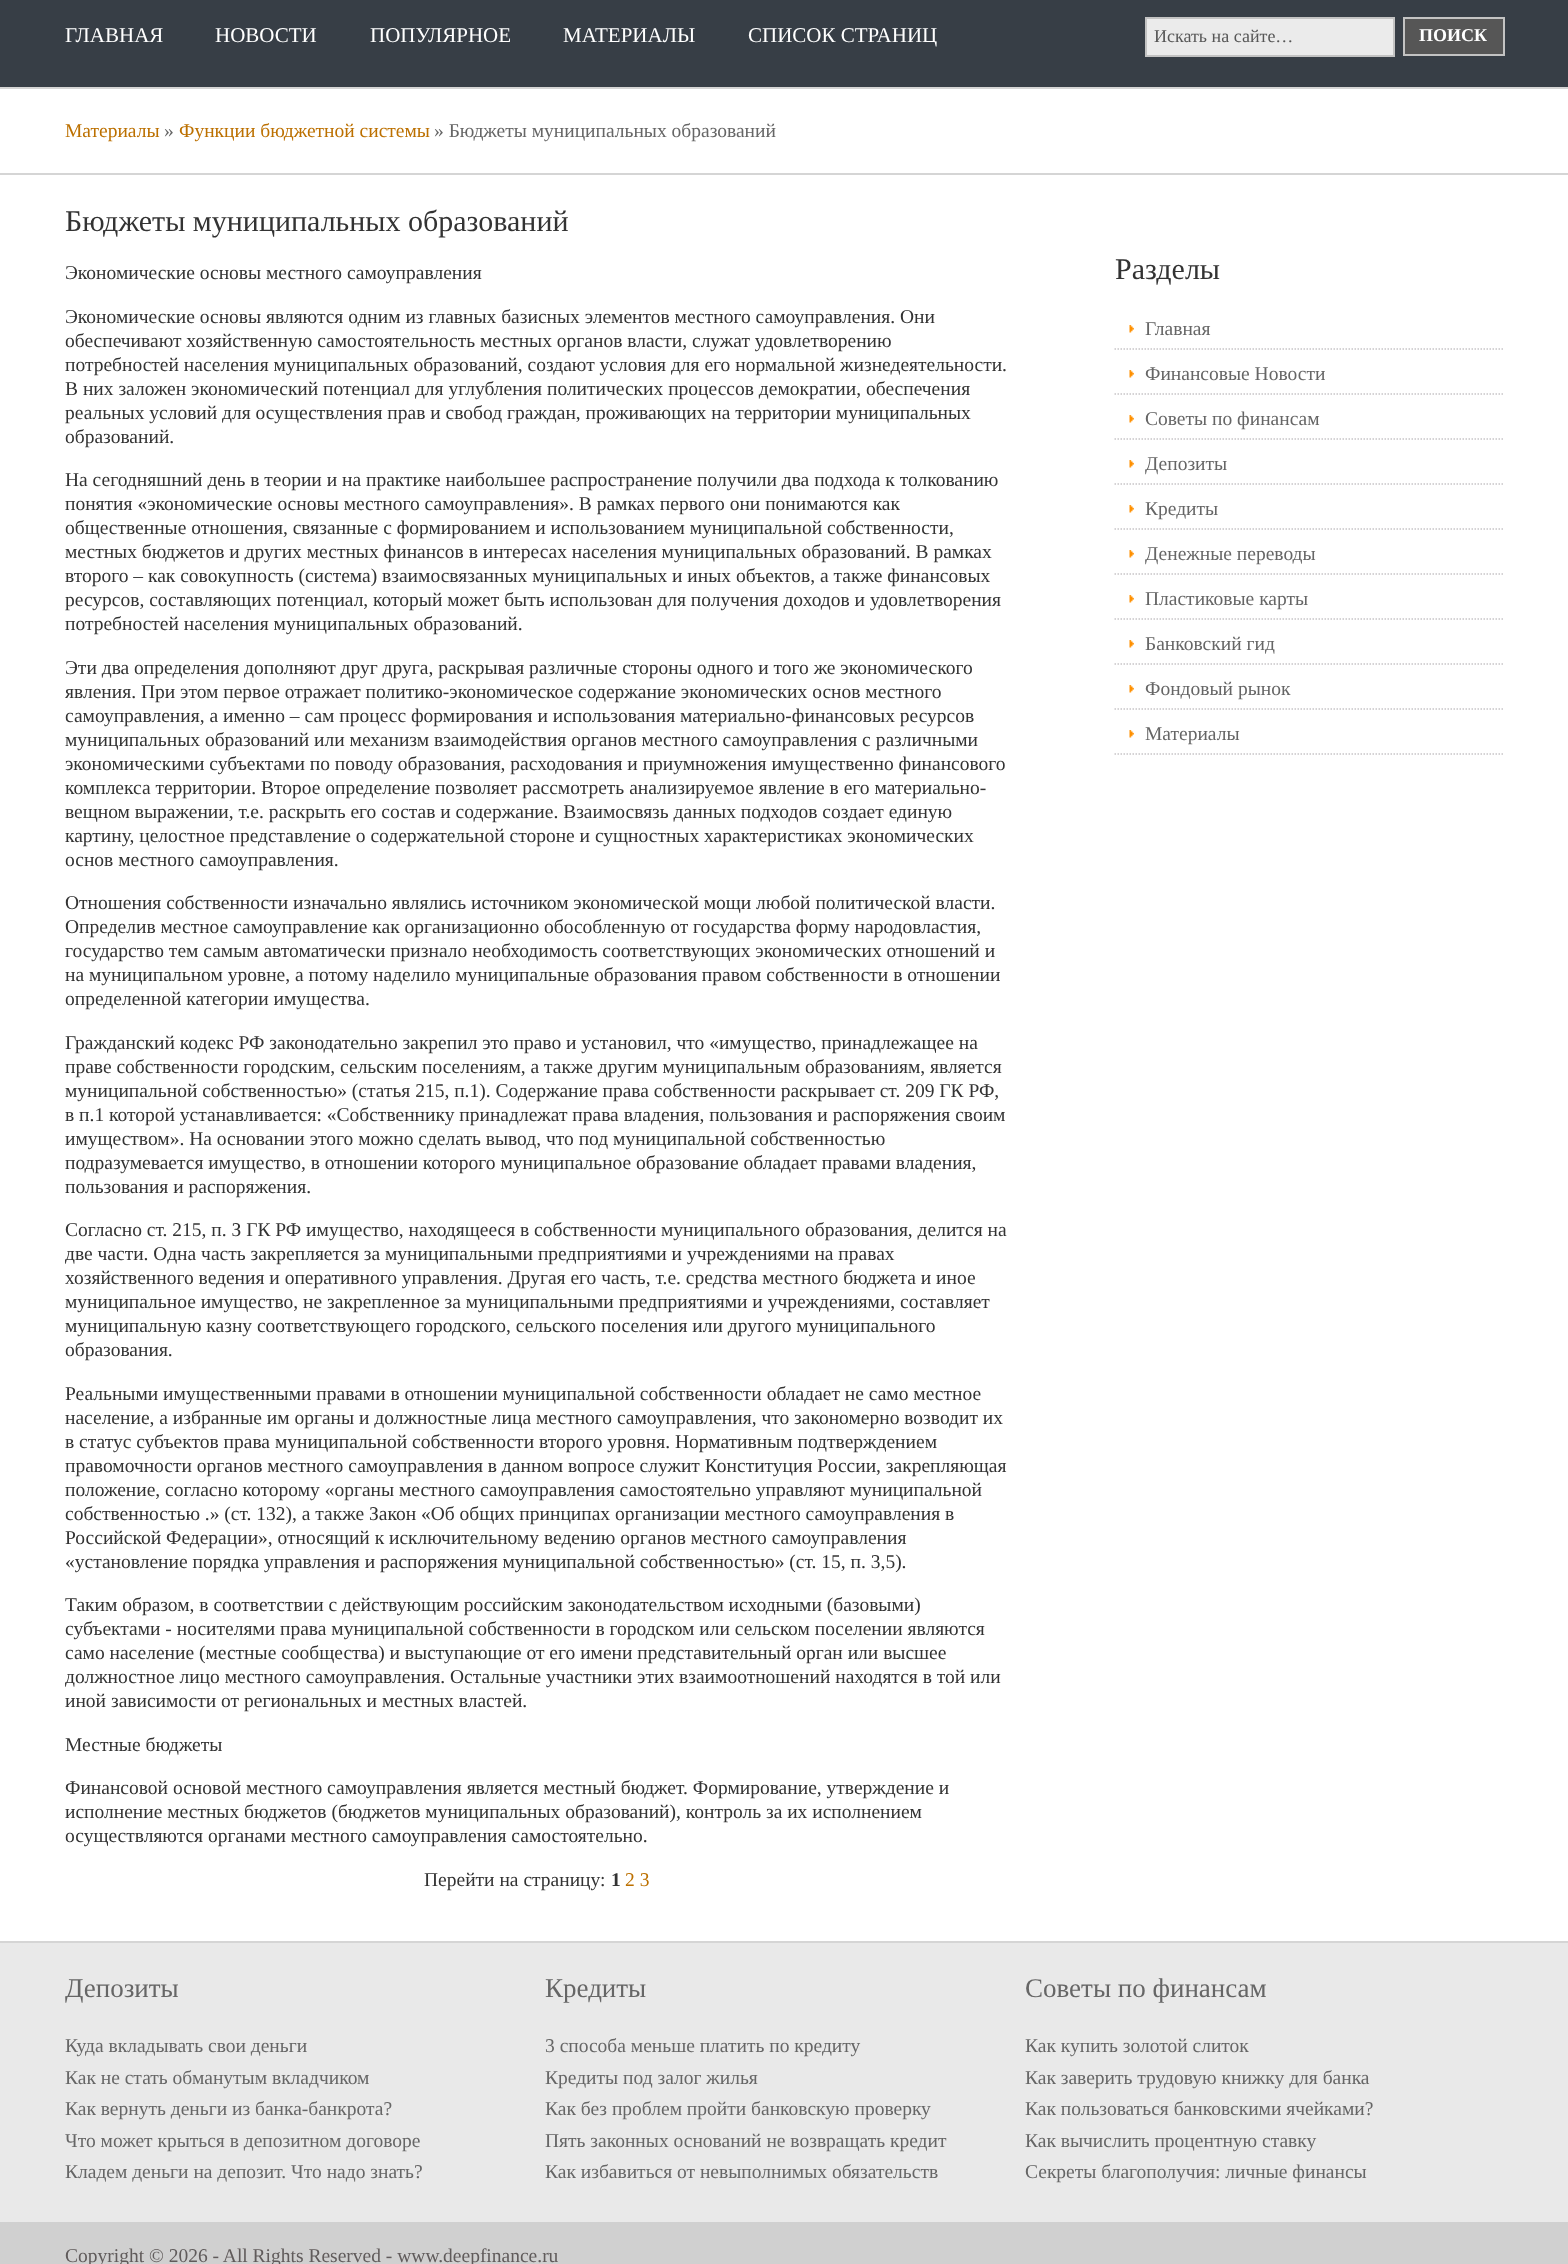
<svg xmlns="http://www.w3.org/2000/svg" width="1568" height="2264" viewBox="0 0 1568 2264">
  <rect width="100%" height="100%" fill="#d0d0d0"/>
  <rect x="0" y="0" width="1568" height="87" fill="#373e46"/>
  <rect x="0" y="87" width="1568" height="2" fill="#d5d5d5"/>
  <text x="65" y="42" font-family="Liberation Serif" font-size="21" fill="#ffffff">ГЛАВНАЯ</text>
  <text x="215" y="42" font-family="Liberation Serif" font-size="21" fill="#ffffff">НОВОСТИ</text>
  <text x="370" y="42" font-family="Liberation Serif" font-size="21" fill="#ffffff">ПОПУЛЯРНОЕ</text>
  <text x="563" y="42" font-family="Liberation Serif" font-size="21" fill="#ffffff">МАТЕРИАЛЫ</text>
  <text x="748" y="42" font-family="Liberation Serif" font-size="21" fill="#ffffff">СПИСОК СТРАНИЦ</text>
  <rect x="1146" y="18" width="248" height="38" fill="#ebebeb" stroke="#c3c3c3" stroke-width="2"/>
  <text x="1154" y="42" font-family="Liberation Serif" font-size="18" fill="#565656">Искать на сайте…</text>
  <rect x="1404" y="18" width="100" height="37" fill="#565656" stroke="#c3c3c3" stroke-width="2"/>
  <text x="1419" y="41" font-family="Liberation Serif" font-size="18" font-weight="bold" fill="#ffffff">ПОИСК</text>
  <rect x="0" y="89" width="1568" height="84" fill="#ffffff"/>
  <text x="65" y="137" font-family="Liberation Serif" font-size="19.5" fill="#bc7000">Материалы</text>
  <text x="164" y="137" font-family="Liberation Serif" font-size="19.5" fill="#666666">»</text>
  <text x="179" y="137" font-family="Liberation Serif" font-size="19.5" fill="#bc7000">Функции бюджетной системы</text>
  <text x="434" y="137" font-family="Liberation Serif" font-size="19.5" fill="#666666">» Бюджеты муниципальных образований</text>
  <rect x="0" y="175" width="1568" height="1766" fill="#ffffff"/>
  <rect x="0" y="173" width="1568" height="2" fill="#d5d5d5"/>
  <rect x="0" y="1941" width="1568" height="2" fill="#d5d5d5"/>
  <text x="65" y="231" font-family="Liberation Serif" font-size="30" fill="#333333">Бюджеты муниципальных образований</text>
  <text x="65" y="279" font-family="Liberation Serif" font-size="19.5" fill="#333333">Экономические основы местного самоуправления</text>
  <text x="65" y="323" font-family="Liberation Serif" font-size="19.5" fill="#333333">Экономические основы являются одним из главных базисных элементов местного самоуправления. Они</text>
  <text x="65" y="347" font-family="Liberation Serif" font-size="19.5" fill="#333333">обеспечивают хозяйственную самостоятельность местных органов власти, служат удовлетворению</text>
  <text x="65" y="371" font-family="Liberation Serif" font-size="19.5" fill="#333333">потребностей населения муниципальных образований, создают условия для его нормальной жизнедеятельности.</text>
  <text x="65" y="395" font-family="Liberation Serif" font-size="19.5" fill="#333333">В них заложен экономический потенциал для углубления политических процессов демократии, обеспечения</text>
  <text x="65" y="419" font-family="Liberation Serif" font-size="19.5" fill="#333333">реальных условий для осуществления прав и свобод граждан, проживающих на территории муниципальных</text>
  <text x="65" y="443" font-family="Liberation Serif" font-size="19.5" fill="#333333">образований.</text>
  <text x="65" y="486" font-family="Liberation Serif" font-size="19.5" fill="#333333">На сегодняшний день в теории и на практике наибольшее распространение получили два подхода к толкованию</text>
  <text x="65" y="510" font-family="Liberation Serif" font-size="19.5" fill="#333333">понятия «экономические основы местного самоуправления». В рамках первого они понимаются как</text>
  <text x="65" y="534" font-family="Liberation Serif" font-size="19.5" fill="#333333">общественные отношения, связанные с формированием и использованием муниципальной собственности,</text>
  <text x="65" y="558" font-family="Liberation Serif" font-size="19.5" fill="#333333">местных бюджетов и других местных финансов в интересах населения муниципальных образований. B рамках</text>
  <text x="65" y="582" font-family="Liberation Serif" font-size="19.5" fill="#333333">второго – как совокупность (система) взаимосвязанных муниципальных и иных объектов, а также финансовых</text>
  <text x="65" y="606" font-family="Liberation Serif" font-size="19.5" fill="#333333">ресурсов, составляющих потенциал, который может быть использован для получения доходов и удовлетворения</text>
  <text x="65" y="630" font-family="Liberation Serif" font-size="19.5" fill="#333333">потребностей населения муниципальных образований.</text>
  <text x="65" y="674" font-family="Liberation Serif" font-size="19.5" fill="#333333">Эти два определения дополняют друг друга, раскрывая различные стороны одного и того же экономического</text>
  <text x="65" y="698" font-family="Liberation Serif" font-size="19.5" fill="#333333">явления. При этом первое отражает политико-экономическое содержание экономических основ местного</text>
  <text x="65" y="722" font-family="Liberation Serif" font-size="19.5" fill="#333333">самоуправления, а именно – сам процесс формирования и использования материально-финансовых ресурсов</text>
  <text x="65" y="746" font-family="Liberation Serif" font-size="19.5" fill="#333333">муниципальных образований или механизм взаимодействия органов местного самоуправления с различными</text>
  <text x="65" y="770" font-family="Liberation Serif" font-size="19.5" fill="#333333">экономическими субъектами по поводу образования, расходования и приумножения имущественно финансового</text>
  <text x="65" y="794" font-family="Liberation Serif" font-size="19.5" fill="#333333">комплекса территории. Второе определение позволяет рассмотреть анализируемое явление в его материально-</text>
  <text x="65" y="818" font-family="Liberation Serif" font-size="19.5" fill="#333333">вещном выражении, т.е. раскрыть его состав и содержание. Взаимосвязь данных подходов создает единую</text>
  <text x="65" y="842" font-family="Liberation Serif" font-size="19.5" fill="#333333">картину, целостное представление о содержательной стороне и сущностных характеристиках экономических</text>
  <text x="65" y="866" font-family="Liberation Serif" font-size="19.5" fill="#333333">основ местного самоуправления.</text>
  <text x="65" y="909" font-family="Liberation Serif" font-size="19.5" fill="#333333">Отношения собственности изначально являлись источником экономической мощи любой политической власти.</text>
  <text x="65" y="933" font-family="Liberation Serif" font-size="19.5" fill="#333333">Определив местное самоуправление как организационно обособленную от государства форму народовластия,</text>
  <text x="65" y="957" font-family="Liberation Serif" font-size="19.5" fill="#333333">государство тем самым автоматически признало необходимость соответствующих экономических отношений и</text>
  <text x="65" y="981" font-family="Liberation Serif" font-size="19.5" fill="#333333">на муниципальном уровне, а потому наделило муниципальные образования правом собственности в отношении</text>
  <text x="65" y="1005" font-family="Liberation Serif" font-size="19.5" fill="#333333">определенной категории имущества.</text>
  <text x="65" y="1049" font-family="Liberation Serif" font-size="19.5" fill="#333333">Гражданский кодекс РФ законодательно закрепил это право и установил, что «имущество, принадлежащее на</text>
  <text x="65" y="1073" font-family="Liberation Serif" font-size="19.5" fill="#333333">праве собственности городским, сельским поселениям, а также другим муниципальным образованиям, является</text>
  <text x="65" y="1097" font-family="Liberation Serif" font-size="19.5" fill="#333333">муниципальной собственностью» (статья 215, п.1). Содержание права собственности раскрывает ст. 209 ГК РФ,</text>
  <text x="65" y="1121" font-family="Liberation Serif" font-size="19.5" fill="#333333">в п.1 которой устанавливается: «Собственнику принадлежат права владения, пользования и распоряжения своим</text>
  <text x="65" y="1145" font-family="Liberation Serif" font-size="19.5" fill="#333333">имуществом». На основании этого можно сделать вывод, что под муниципальной собственностью</text>
  <text x="65" y="1169" font-family="Liberation Serif" font-size="19.5" fill="#333333">подразумевается имущество, в отношении которого муниципальное образование обладает правами владения,</text>
  <text x="65" y="1193" font-family="Liberation Serif" font-size="19.5" fill="#333333">пользования и распоряжения.</text>
  <text x="65" y="1236" font-family="Liberation Serif" font-size="19.5" fill="#333333">Согласно ст. 215, п. З ГК РФ имущество, находящееся в собственности муниципального образования, делится на</text>
  <text x="65" y="1260" font-family="Liberation Serif" font-size="19.5" fill="#333333">две части. Одна часть закрепляется за муниципальными предприятиями и учреждениями на правах</text>
  <text x="65" y="1284" font-family="Liberation Serif" font-size="19.5" fill="#333333">хозяйственного ведения и оперативного управления. Другая его часть, т.е. средства местного бюджета и иное</text>
  <text x="65" y="1308" font-family="Liberation Serif" font-size="19.5" fill="#333333">муниципальное имущество, не закрепленное за муниципальными предприятиями и учреждениями, составляет</text>
  <text x="65" y="1332" font-family="Liberation Serif" font-size="19.5" fill="#333333">муниципальную казну соответствующего городского, сельского поселения или другого муниципального</text>
  <text x="65" y="1356" font-family="Liberation Serif" font-size="19.5" fill="#333333">образования.</text>
  <text x="65" y="1400" font-family="Liberation Serif" font-size="19.5" fill="#333333">Реальными имущественными правами в отношении муниципальной собственности обладает не само местное</text>
  <text x="65" y="1424" font-family="Liberation Serif" font-size="19.5" fill="#333333">население, а избранные им органы и должностные лица местного самоуправления, что закономерно возводит их</text>
  <text x="65" y="1448" font-family="Liberation Serif" font-size="19.5" fill="#333333">в статус субъектов права муниципальной собственности второго уровня. Нормативным подтверждением</text>
  <text x="65" y="1472" font-family="Liberation Serif" font-size="19.5" fill="#333333">правомочности органов местного самоуправления в данном вопросе служит Конституция России, закрепляющая</text>
  <text x="65" y="1496" font-family="Liberation Serif" font-size="19.5" fill="#333333">положение, согласно которому «органы местного самоуправления самостоятельно управляют муниципальной</text>
  <text x="65" y="1520" font-family="Liberation Serif" font-size="19.5" fill="#333333">собственностью .» (ст. 132), а также Закон «Об общих принципах организации местного самоуправления в</text>
  <text x="65" y="1544" font-family="Liberation Serif" font-size="19.5" fill="#333333">Российской Федерации», относящий к исключительному ведению органов местного самоуправления</text>
  <text x="65" y="1568" font-family="Liberation Serif" font-size="19.5" fill="#333333">«установление порядка управления и распоряжения муниципальной собственностью» (ст. 15, п. 3,5).</text>
  <text x="65" y="1611" font-family="Liberation Serif" font-size="19.5" fill="#333333">Таким образом, в соответствии с действующим российским законодательством исходными (базовыми)</text>
  <text x="65" y="1635" font-family="Liberation Serif" font-size="19.5" fill="#333333">субъектами - носителями права муниципальной собственности в городском или сельском поселении являются</text>
  <text x="65" y="1659" font-family="Liberation Serif" font-size="19.5" fill="#333333">само население (местные сообщества) и выступающие от его имени представительный орган или высшее</text>
  <text x="65" y="1683" font-family="Liberation Serif" font-size="19.5" fill="#333333">должностное лицо местного самоуправления. Остальные участники этих взаимоотношений находятся в той или</text>
  <text x="65" y="1707" font-family="Liberation Serif" font-size="19.5" fill="#333333">иной зависимости от региональных и местных властей.</text>
  <text x="65" y="1751" font-family="Liberation Serif" font-size="19.5" fill="#333333">Местные бюджеты</text>
  <text x="65" y="1794" font-family="Liberation Serif" font-size="19.5" fill="#333333">Финансовой основой местного самоуправления является местный бюджет. Формирование, утверждение и</text>
  <text x="65" y="1818" font-family="Liberation Serif" font-size="19.5" fill="#333333">исполнение местных бюджетов (бюджетов муниципальных образований), контроль за их исполнением</text>
  <text x="65" y="1842" font-family="Liberation Serif" font-size="19.5" fill="#333333">осуществляются органами местного самоуправления самостоятельно.</text>
  <text x="424" y="1886" font-family="Liberation Serif" font-size="19.5" fill="#333333">Перейти на страницу:</text>
  <text x="611" y="1886" font-family="Liberation Serif" font-size="19.5" font-weight="bold" fill="#333333">1</text>
  <text x="625" y="1886" font-family="Liberation Serif" font-size="19.5" fill="#bc7000">2 3</text>
  <text x="1115" y="279" font-family="Liberation Serif" font-size="30" fill="#333333">Разделы</text>
  <image x="1129" y="325" width="5" height="8" href="img1.png"/>
  <path d="M1114.5 349H1504.5" fill="none" stroke="#c7c5c8" stroke-width="1.5" stroke-dasharray="1.5 1.5"/>
  <text x="1145" y="335" font-family="Liberation Serif" font-size="19.5" fill="#666666">Главная</text>
  <image x="1129" y="370" width="5" height="8" href="img1.png"/>
  <path d="M1114.5 394H1504.5" fill="none" stroke="#c7c5c8" stroke-width="1.5" stroke-dasharray="1.5 1.5"/>
  <text x="1145" y="380" font-family="Liberation Serif" font-size="19.5" fill="#666666">Финансовые Новости</text>
  <image x="1129" y="415" width="5" height="8" href="img1.png"/>
  <path d="M1114.5 439H1504.5" fill="none" stroke="#c7c5c8" stroke-width="1.5" stroke-dasharray="1.5 1.5"/>
  <text x="1145" y="425" font-family="Liberation Serif" font-size="19.5" fill="#666666">Советы по финансам</text>
  <image x="1129" y="460" width="5" height="8" href="img1.png"/>
  <path d="M1114.5 484H1504.5" fill="none" stroke="#c7c5c8" stroke-width="1.5" stroke-dasharray="1.5 1.5"/>
  <text x="1145" y="470" font-family="Liberation Serif" font-size="19.5" fill="#666666">Депозиты</text>
  <image x="1129" y="505" width="5" height="8" href="img1.png"/>
  <path d="M1114.5 529H1504.5" fill="none" stroke="#c7c5c8" stroke-width="1.5" stroke-dasharray="1.5 1.5"/>
  <text x="1145" y="515" font-family="Liberation Serif" font-size="19.5" fill="#666666">Кредиты</text>
  <image x="1129" y="550" width="5" height="8" href="img1.png"/>
  <path d="M1114.5 574H1504.5" fill="none" stroke="#c7c5c8" stroke-width="1.5" stroke-dasharray="1.5 1.5"/>
  <text x="1145" y="560" font-family="Liberation Serif" font-size="19.5" fill="#666666">Денежные переводы</text>
  <image x="1129" y="595" width="5" height="8" href="img1.png"/>
  <path d="M1114.5 619H1504.5" fill="none" stroke="#c7c5c8" stroke-width="1.5" stroke-dasharray="1.5 1.5"/>
  <text x="1145" y="605" font-family="Liberation Serif" font-size="19.5" fill="#666666">Пластиковые карты</text>
  <image x="1129" y="640" width="5" height="8" href="img1.png"/>
  <path d="M1114.5 664H1504.5" fill="none" stroke="#c7c5c8" stroke-width="1.5" stroke-dasharray="1.5 1.5"/>
  <text x="1145" y="650" font-family="Liberation Serif" font-size="19.5" fill="#666666">Банковский гид</text>
  <image x="1129" y="685" width="5" height="8" href="img1.png"/>
  <path d="M1114.5 709H1504.5" fill="none" stroke="#c7c5c8" stroke-width="1.5" stroke-dasharray="1.5 1.5"/>
  <text x="1145" y="695" font-family="Liberation Serif" font-size="19.5" fill="#666666">Фондовый рынок</text>
  <image x="1129" y="730" width="5" height="8" href="img1.png"/>
  <path d="M1114.5 754H1504.5" fill="none" stroke="#c7c5c8" stroke-width="1.5" stroke-dasharray="1.5 1.5"/>
  <text x="1145" y="740" font-family="Liberation Serif" font-size="19.5" fill="#666666">Материалы</text>
  <rect x="0" y="1943" width="1568" height="279" fill="#e9e9e9"/>
  <text x="65" y="1997" font-family="Liberation Serif" font-size="27" fill="#666666">Депозиты</text>
  <text x="65" y="2052" font-family="Liberation Serif" font-size="19.5" fill="#666666">Куда вкладывать свои деньги</text>
  <text x="65" y="2084" font-family="Liberation Serif" font-size="19.5" fill="#666666">Как не стать обманутым вкладчиком</text>
  <text x="65" y="2115" font-family="Liberation Serif" font-size="19.5" fill="#666666">Как вернуть деньги из банка-банкрота?</text>
  <text x="65" y="2147" font-family="Liberation Serif" font-size="19.5" fill="#666666">Что может крыться в депозитном договоре</text>
  <text x="65" y="2178" font-family="Liberation Serif" font-size="19.5" fill="#666666">Кладем деньги на депозит. Что надо знать?</text>
  <text x="545" y="1997" font-family="Liberation Serif" font-size="27" fill="#666666">Кредиты</text>
  <text x="545" y="2052" font-family="Liberation Serif" font-size="19.5" fill="#666666">3 способа меньше платить по кредиту</text>
  <text x="545" y="2084" font-family="Liberation Serif" font-size="19.5" fill="#666666">Кредиты под залог жилья</text>
  <text x="545" y="2115" font-family="Liberation Serif" font-size="19.5" fill="#666666">Как без проблем пройти банковскую проверку</text>
  <text x="545" y="2147" font-family="Liberation Serif" font-size="19.5" fill="#666666">Пять законных оснований не возвращать кредит</text>
  <text x="545" y="2178" font-family="Liberation Serif" font-size="19.5" fill="#666666">Как избавиться от невыполнимых обязательств</text>
  <text x="1025" y="1997" font-family="Liberation Serif" font-size="27" fill="#666666">Советы по финансам</text>
  <text x="1025" y="2052" font-family="Liberation Serif" font-size="19.5" fill="#666666">Как купить золотой слиток</text>
  <text x="1025" y="2084" font-family="Liberation Serif" font-size="19.5" fill="#666666">Как заверить трудовую книжку для банка</text>
  <text x="1025" y="2115" font-family="Liberation Serif" font-size="19.5" fill="#666666">Как пользоваться банковскими ячейками?</text>
  <text x="1025" y="2147" font-family="Liberation Serif" font-size="19.5" fill="#666666">Как вычислить процентную ставку</text>
  <text x="1025" y="2178" font-family="Liberation Serif" font-size="19.5" fill="#666666">Секреты благополучия: личные финансы</text>
  <text x="65" y="2262" font-family="Liberation Serif" font-size="19.5" fill="#605b5b">Copyright © 2026 - All Rights Reserved - www.deepfinance.ru</text>
</svg>
